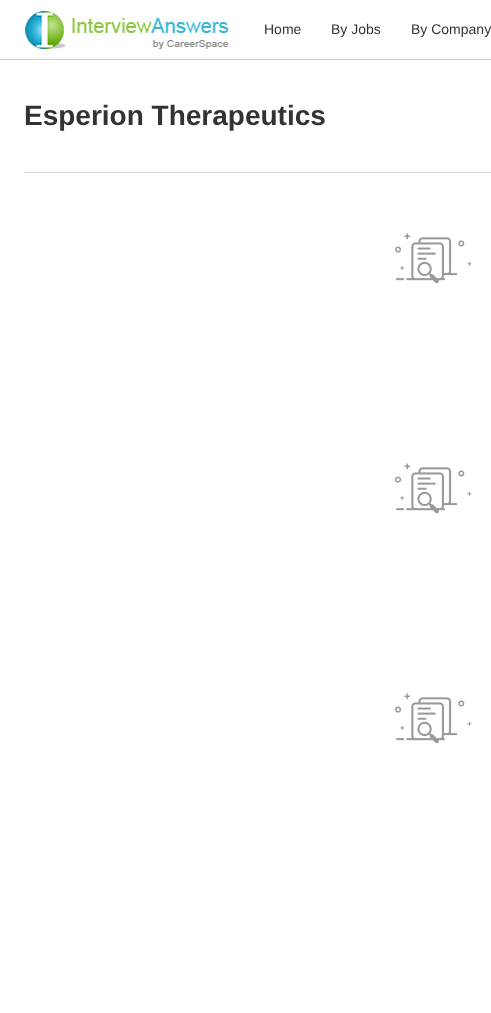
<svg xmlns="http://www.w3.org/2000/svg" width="491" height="1013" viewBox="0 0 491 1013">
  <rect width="100%" height="100%" fill="#ffffff"/>
  <rect x="0" y="59" width="491" height="1" fill="#cccccc"/>
  <image x="25" y="11" width="204" height="38" href="img1.png"/>
  <text x="264" y="34" font-family="Liberation Sans" font-size="14" fill="#333333">Home</text>
  <text x="331" y="34" font-family="Liberation Sans" font-size="14" fill="#333333">By Jobs</text>
  <text x="411" y="34" font-family="Liberation Sans" font-size="14" fill="#333333">By Company</text>
  <text x="24" y="125" font-family="Liberation Sans" font-size="28" font-weight="bold" fill="#333333">Esperion Therapeutics</text>
  <rect x="24" y="172" width="467" height="1" fill="#dcdee2"/>
  <image x="395" y="233" width="77" height="51" href="img2.png"/>
  <image x="395" y="463" width="77" height="51" href="img2.png"/>
  <image x="395" y="693" width="77" height="51" href="img2.png"/>
</svg>
